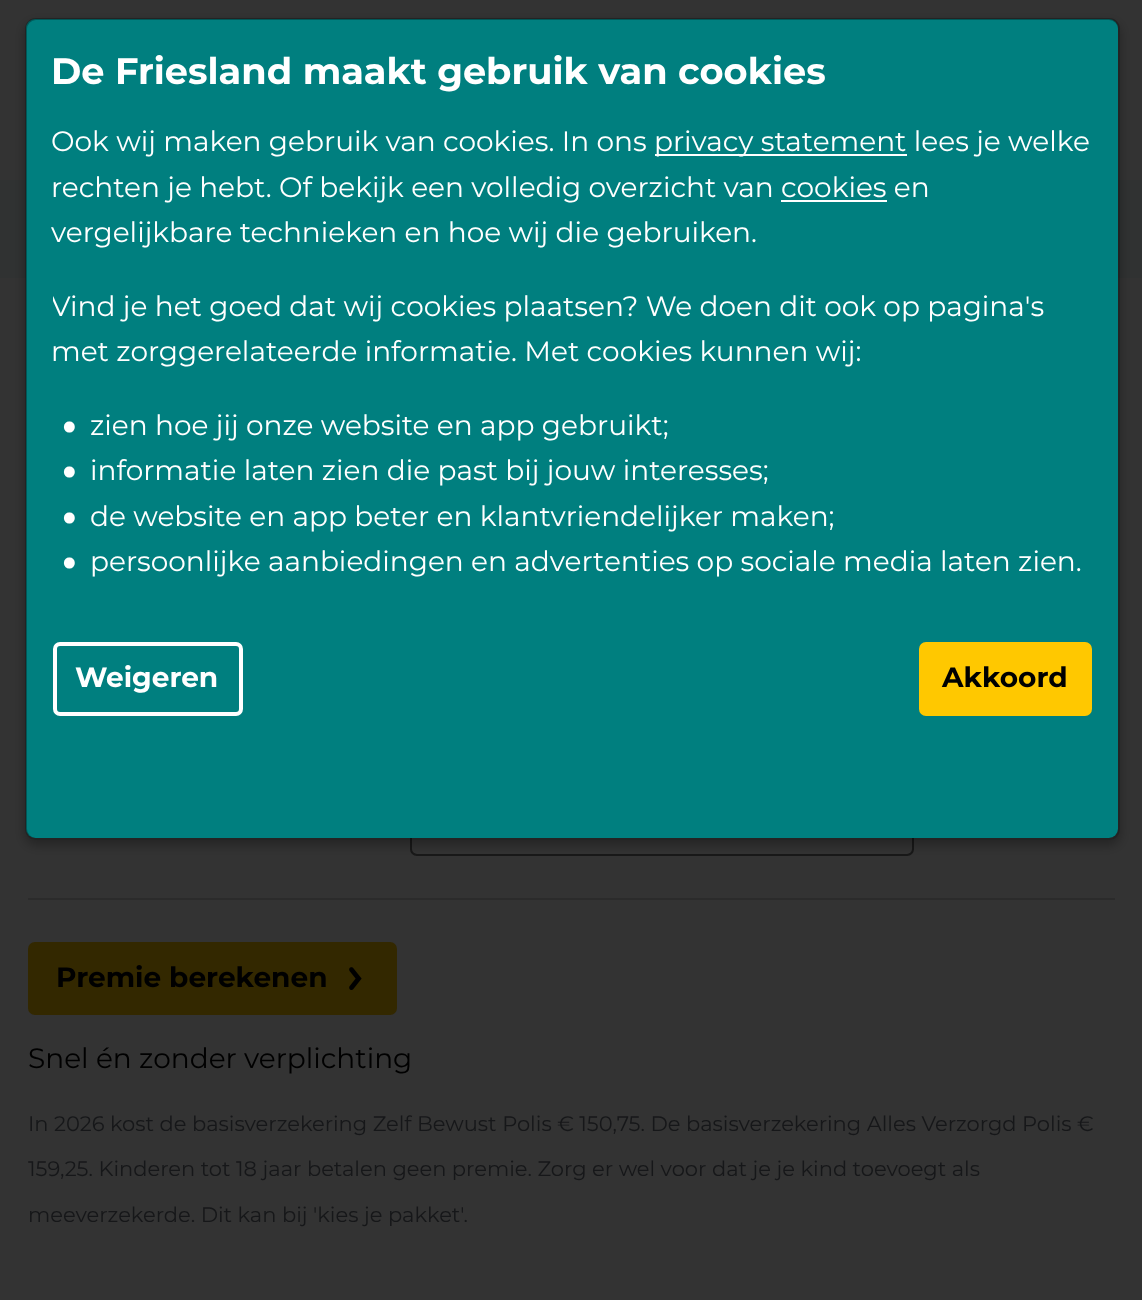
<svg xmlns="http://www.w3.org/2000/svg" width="1142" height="1300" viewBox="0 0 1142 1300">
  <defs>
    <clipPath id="clip1"><path d="M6 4H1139V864H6ZM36 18H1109C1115 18 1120 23 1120 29V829C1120 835 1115 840 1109 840H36C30 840 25 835 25 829V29C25 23 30 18 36 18Z" clip-rule="evenodd"/></clipPath>
    <filter id="blur1" x="-50%" y="-200%" width="200%" height="500%"><feGaussianBlur stdDeviation="6"/></filter>
    <clipPath id="clip2"><rect x="53" y="285" width="1039" height="357"/></clipPath>
  </defs>
  <rect width="100%" height="100%" fill="#333333"/>
  <rect x="0" y="180" width="1142" height="98" fill="#303232"/>
  <rect x="411" y="787" width="502" height="68" rx="6" fill="none" stroke="#181818" stroke-width="2"/>
  <g clip-path="url(#clip1)">
    <rect x="25" y="23" width="1095" height="822" rx="11" fill="#000000" fill-opacity="0.3" filter="url(#blur1)"/>
  </g>
  <rect x="26" y="19" width="1092" height="819" rx="9" fill="#007f7f"/>
  <rect x="26" y="19" width="1093" height="820" rx="10" fill="none" stroke="#000000" stroke-opacity="0.3" stroke-width="2"/>
  <text x="51" y="84" font-family="Montserrat" font-size="36.75" font-weight="100" fill="#ffffff">De Friesland maakt gebruik van cookies</text>
  <text x="51" y="151" font-family="Montserrat" font-size="28" fill="#ffffff">Ook wij maken gebruik van cookies. In ons</text>
  <rect x="655" y="154" width="252" height="2" fill="#ffffff"/>
  <text x="654" y="151" font-family="Montserrat" font-size="28" fill="#ffffff">privacy statement lees je welke</text>
  <text x="51" y="197" font-family="Montserrat" font-size="28" fill="#ffffff">rechten je hebt. Of bekijk een volledig overzicht van cookies en</text>
  <rect x="781" y="200" width="106" height="2" fill="#ffffff"/>
  <text x="51" y="242" font-family="Montserrat" font-size="28" fill="#ffffff">vergelijkbare technieken en hoe wij die gebruiken.</text>
  <g clip-path="url(#clip2)">
    <text x="51" y="316" font-family="Montserrat" font-size="28" fill="#ffffff">Vind je het goed dat wij cookies plaatsen? We doen dit ook op pagina's</text>
  </g>
  <text x="51" y="361" font-family="Montserrat" font-size="28" fill="#ffffff">met zorggerelateerde informatie. Met cookies kunnen wij:</text>
  <text x="62" y="432" font-family="Montserrat" font-size="56" font-weight="100" fill="#ffffff">.</text>
  <text x="90" y="435" font-family="Montserrat" font-size="28" fill="#ffffff">zien hoe jij onze website en app gebruikt;</text>
  <text x="62" y="477" font-family="Montserrat" font-size="56" font-weight="100" fill="#ffffff">.</text>
  <text x="90" y="480" font-family="Montserrat" font-size="28" fill="#ffffff">informatie laten zien die past bij jouw interesses;</text>
  <text x="62" y="523" font-family="Montserrat" font-size="56" font-weight="100" fill="#ffffff">.</text>
  <text x="90" y="526" font-family="Montserrat" font-size="28" fill="#ffffff">de website en app beter en klantvriendelijker maken;</text>
  <text x="62" y="568" font-family="Montserrat" font-size="56" font-weight="100" fill="#ffffff">.</text>
  <text x="90" y="571" font-family="Montserrat" font-size="28" fill="#ffffff">persoonlijke aanbiedingen en advertenties op sociale media laten zien.</text>
  <rect x="55" y="644" width="186" height="70" rx="5" fill="none" stroke="#ffffff" stroke-width="4"/>
  <text x="75" y="687" font-family="Montserrat" font-size="28" font-weight="100" fill="#ffffff">Weigeren</text>
  <rect x="921" y="644" width="169" height="70" rx="5" fill="#ffc800" stroke="#ffc800" stroke-width="4"/>
  <text x="942" y="687" font-family="Montserrat" font-size="28" font-weight="100" fill="#000000">Akkoord</text>
  <rect x="28" y="898" width="1087" height="2" fill="#2b2b2b"/>
  <rect x="28" y="942" width="369" height="73" rx="7" fill="#332800"/>
  <text x="56" y="987" font-family="Montserrat" font-size="28" font-weight="100" fill="#000000">Premie berekenen</text>
  <image x="349" y="967" width="13" height="23" href="img1.png"/>
  <text x="28" y="1068" font-family="Montserrat" font-size="28" fill="#000000">Snel én zonder verplichting</text>
  <text x="28" y="1131" font-family="Montserrat" font-size="21" fill="#161719">In 2026 kost de basisverzekering Zelf Bewust Polis € 150,75. De basisverzekering Alles Verzorgd Polis €</text>
  <text x="28" y="1176" font-family="Montserrat" font-size="21" fill="#161719">159,25. Kinderen tot 18 jaar betalen geen premie. Zorg er wel voor dat je je kind toevoegt als</text>
  <text x="28" y="1222" font-family="Montserrat" font-size="21" fill="#161719">meeverzekerde. Dit kan bij 'kies je pakket'.</text>
</svg>
